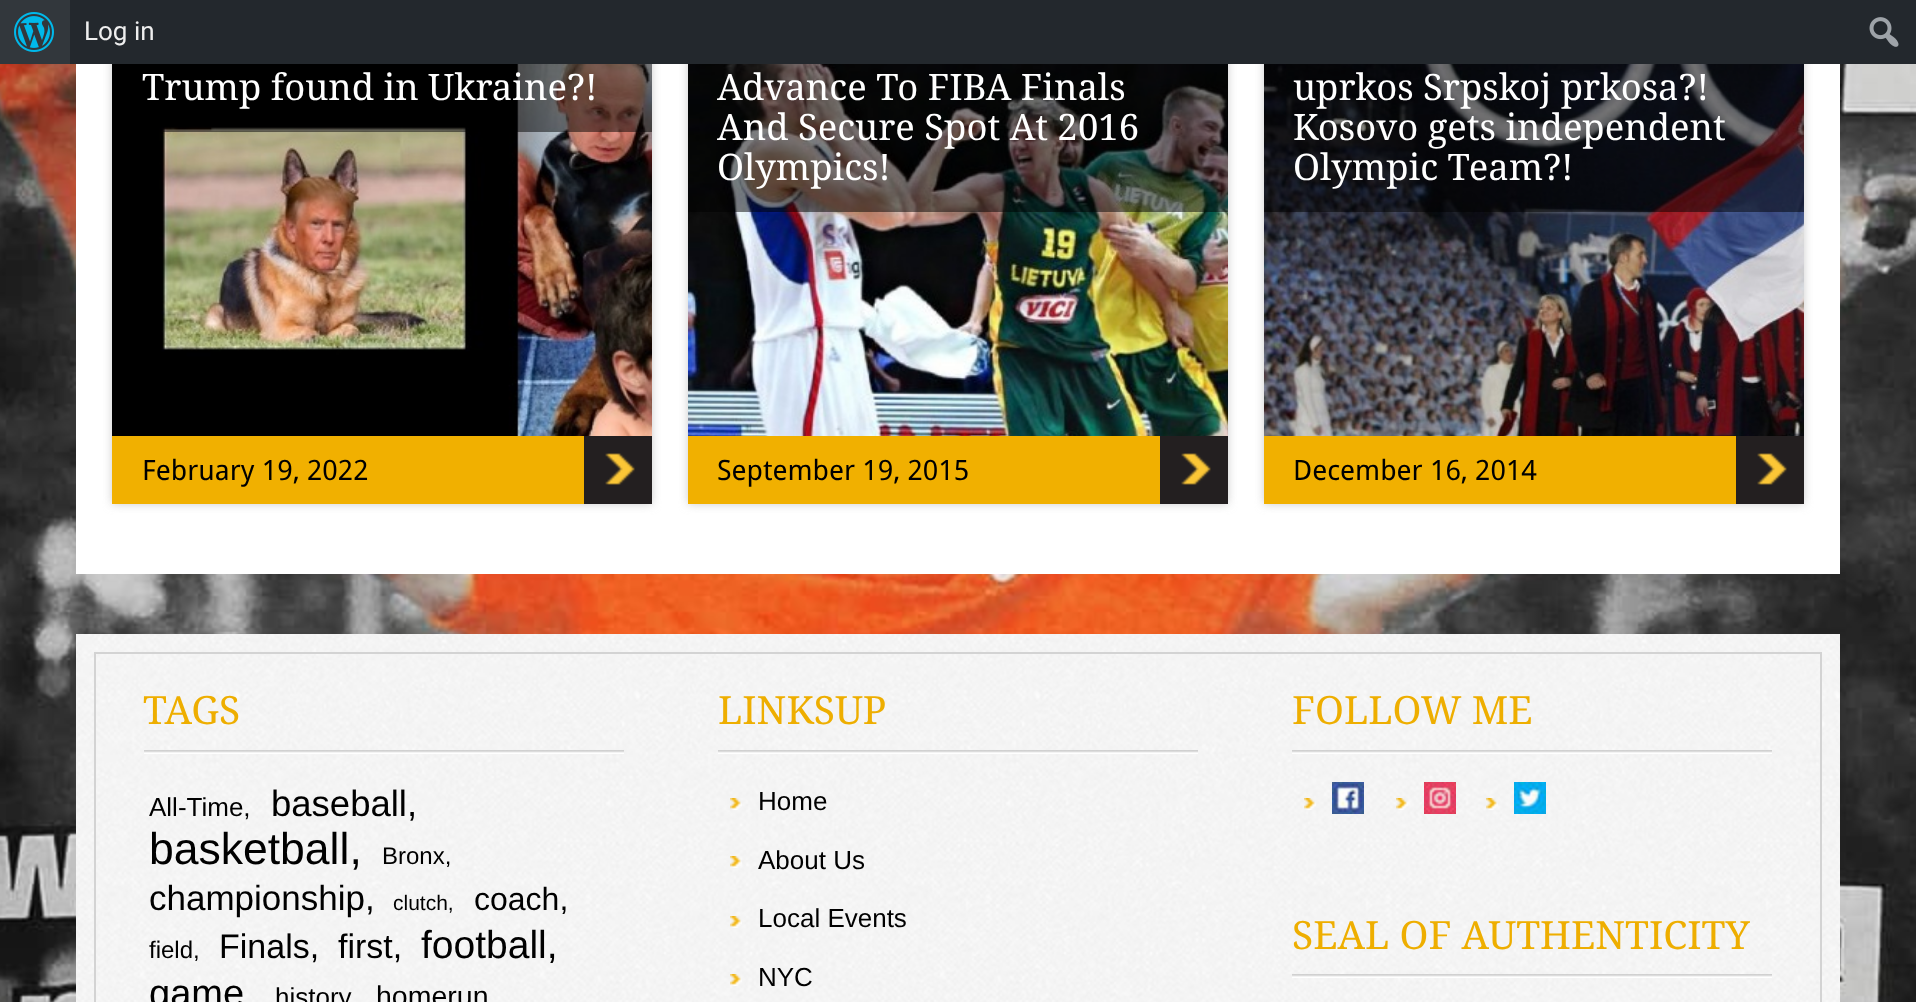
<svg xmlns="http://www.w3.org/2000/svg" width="1916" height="1002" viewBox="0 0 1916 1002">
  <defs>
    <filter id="blur1" x="-50%" y="-200%" width="200%" height="500%"><feGaussianBlur stdDeviation="5"/></filter>
  </defs>
  <rect width="100%" height="100%" fill="#ffffff"/>
  <image x="0" y="64" width="1916" height="938" href="img1.png"/>
  <rect x="76" y="64" width="1764" height="510" fill="#ffffff"/>
  <rect x="112" y="4" width="540" height="500" fill="#cecece" filter="url(#blur1)"/>
  <rect x="688" y="4" width="540" height="500" fill="#cecece" filter="url(#blur1)"/>
  <rect x="1264" y="4" width="540" height="500" fill="#cecece" filter="url(#blur1)"/>
  <rect x="70" y="0" width="1846" height="64" fill="#23282d"/>
  <rect x="0" y="0" width="70" height="64" fill="#32373c"/>
  <image x="14" y="12" width="40" height="40" href="img2.png"/>
  <text x="84" y="40" font-family="Roboto" font-size="26" fill="#eeeeee">Log in</text>
  <image x="1869" y="17" width="30" height="30" href="img3.png"/>
  <image x="112" y="64" width="540" height="372" href="img4.png"/>
  <rect x="163" y="64" width="489" height="68" fill="#000000" fill-opacity="0.5"/>
  <text x="142" y="100" font-family="Droid Serif" font-size="36.4" fill="#ffffff">Trump found in Ukraine?!</text>
  <rect x="112" y="436" width="472" height="68" fill="#f1b000"/>
  <text x="142" y="480" font-family="Droid Sans" font-size="28" fill="#000000">February 19, 2022</text>
  <rect x="584" y="436" width="68" height="68" fill="#231f20"/>
  <image x="605" y="453" width="30" height="32" href="img5.png"/>
  <image x="688" y="64" width="540" height="372" href="img6.png"/>
  <rect x="688" y="64" width="540" height="148" fill="#000000" fill-opacity="0.5"/>
  <text x="717" y="100" font-family="Droid Serif" font-size="36.4" fill="#ffffff">Advance To FIBA Finals</text>
  <text x="717" y="140" font-family="Droid Serif" font-size="36.4" fill="#ffffff">And Secure Spot At 2016</text>
  <text x="717" y="180" font-family="Droid Serif" font-size="36.4" fill="#ffffff">Olympics!</text>
  <rect x="688" y="436" width="472" height="68" fill="#f1b000"/>
  <text x="717" y="480" font-family="Droid Sans" font-size="28" fill="#000000">September 19, 2015</text>
  <rect x="1160" y="436" width="68" height="68" fill="#231f20"/>
  <image x="1181" y="453" width="30" height="32" href="img5.png"/>
  <image x="1264" y="64" width="540" height="372" href="img7.png"/>
  <rect x="1264" y="64" width="540" height="148" fill="#000000" fill-opacity="0.5"/>
  <text x="1293" y="100" font-family="Droid Serif" font-size="36.4" fill="#ffffff">uprkos Srpskoj prkosa?!</text>
  <text x="1293" y="140" font-family="Droid Serif" font-size="36.4" fill="#ffffff">Kosovo gets independent</text>
  <text x="1293" y="180" font-family="Droid Serif" font-size="36.4" fill="#ffffff">Olympic Team?!</text>
  <rect x="1264" y="436" width="472" height="68" fill="#f1b000"/>
  <text x="1293" y="480" font-family="Droid Sans" font-size="28" fill="#000000">December 16, 2014</text>
  <rect x="1736" y="436" width="68" height="68" fill="#231f20"/>
  <image x="1757" y="453" width="30" height="32" href="img5.png"/>
  <image x="76" y="634" width="1764" height="368" href="img8.png"/>
  <rect x="95" y="653" width="1726" height="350" fill="none" stroke="#d3d3d3" stroke-width="2"/>
  <image x="144" y="750" width="480" height="4" href="img9.png"/>
  <text x="143" y="724" font-family="Droid Serif" font-size="39" fill="#eeae00">TAGS</text>
  <text x="149" y="816" font-family="Liberation Sans" font-size="26" fill="#000000">All-Time,</text>
  <text x="271" y="816" font-family="Liberation Sans" font-size="36.5" fill="#000000">baseball,</text>
  <text x="149" y="864" font-family="Liberation Sans" font-size="44.5" fill="#000000">basketball,</text>
  <text x="382" y="864" font-family="Liberation Sans" font-size="24" fill="#000000">Bronx,</text>
  <text x="149" y="910" font-family="Liberation Sans" font-size="35" fill="#000000">championship,</text>
  <text x="393" y="910" font-family="Liberation Sans" font-size="21" fill="#000000">clutch,</text>
  <text x="474" y="910" font-family="Liberation Sans" font-size="32" fill="#000000">coach,</text>
  <text x="149" y="958" font-family="Liberation Sans" font-size="24" fill="#000000">field,</text>
  <text x="219" y="958" font-family="Liberation Sans" font-size="34" fill="#000000">Finals,</text>
  <text x="338" y="958" font-family="Liberation Sans" font-size="34" fill="#000000">first,</text>
  <text x="421" y="958" font-family="Liberation Sans" font-size="39" fill="#000000">football,</text>
  <text x="149" y="1006" font-family="Liberation Sans" font-size="38" fill="#000000">game</text>
  <text x="275" y="1006" font-family="Liberation Sans" font-size="26" fill="#000000">history</text>
  <text x="376" y="1006" font-family="Liberation Sans" font-size="28.5" fill="#000000">homerun</text>
  <image x="718" y="750" width="480" height="4" href="img9.png"/>
  <text x="718" y="724" font-family="Droid Serif" font-size="39" fill="#eeae00">LINKSUP</text>
  <image x="730" y="798" width="12" height="12" href="img10.png"/>
  <text x="758" y="810" font-family="Liberation Sans" font-size="26" fill="#000000">Home</text>
  <image x="730" y="856" width="12" height="12" href="img11.png"/>
  <text x="758" y="869" font-family="Liberation Sans" font-size="26" fill="#000000">About Us</text>
  <image x="730" y="916" width="12" height="12" href="img12.png"/>
  <text x="758" y="927" font-family="Liberation Sans" font-size="26" fill="#000000">Local Events</text>
  <image x="730" y="974" width="12" height="12" href="img13.png"/>
  <text x="758" y="986" font-family="Liberation Sans" font-size="26" fill="#000000">NYC</text>
  <image x="1292" y="750" width="480" height="4" href="img9.png"/>
  <text x="1292" y="724" font-family="Droid Serif" font-size="39" fill="#eeae00">FOLLOW ME</text>
  <image x="1304" y="798" width="12" height="12" href="img14.png"/>
  <image x="1332" y="782" width="32" height="32" href="img15.png"/>
  <image x="1396" y="798" width="12" height="12" href="img16.png"/>
  <image x="1424" y="782" width="32" height="32" href="img17.png"/>
  <image x="1486" y="798" width="12" height="12" href="img18.png"/>
  <image x="1514" y="782" width="32" height="32" href="img19.png"/>
  <image x="1292" y="974" width="480" height="4" href="img9.png"/>
  <text x="1292" y="949" font-family="Droid Serif" font-size="39" fill="#eeae00">SEAL OF AUTHENTICITY</text>
</svg>
